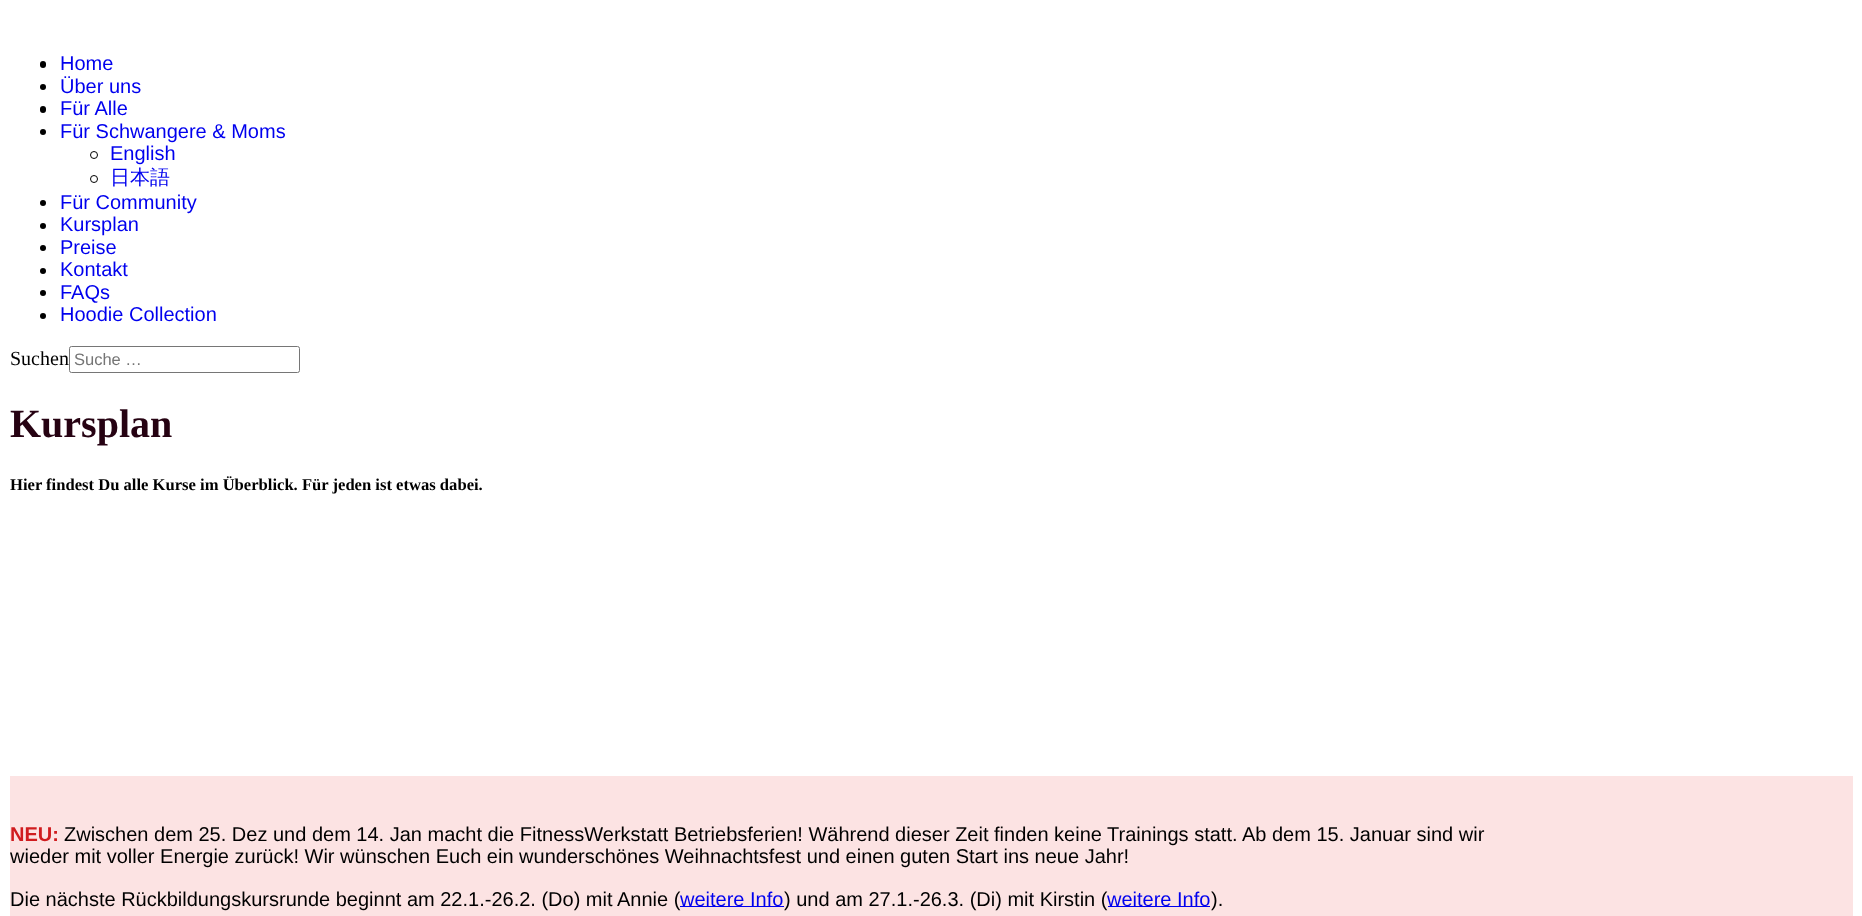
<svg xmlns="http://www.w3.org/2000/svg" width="1862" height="916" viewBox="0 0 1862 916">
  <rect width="100%" height="100%" fill="#ffffff"/>
  <rect x="40" y="61" width="6" height="7" rx="3" fill="#000000"/>
  <text x="60" y="70" font-family="Liberation Sans" font-size="20" fill="#0000ee">Home</text>
  <circle cx="43" cy="87" r="3" fill="#000000"/>
  <text x="60" y="93" font-family="Liberation Sans" font-size="20" fill="#0000ee">Über uns</text>
  <rect x="40" y="106" width="6" height="7" rx="3" fill="#000000"/>
  <text x="60" y="115" font-family="Liberation Sans" font-size="20" fill="#0000ee">Für Alle</text>
  <circle cx="43" cy="132" r="3" fill="#000000"/>
  <text x="60" y="138" font-family="Liberation Sans" font-size="20" fill="#0000ee">Für Schwangere &amp; Moms</text>
  <circle cx="94" cy="155" r="3.5" fill="none" stroke="#000000"/>
  <text x="110" y="160" font-family="Liberation Sans" font-size="20" fill="#0000ee">English</text>
  <circle cx="94" cy="179" r="3.5" fill="none" stroke="#000000"/>
  <text x="110" y="184" font-family="WenQuanYi Zen Hei" font-size="20" font-weight="500" fill="#0000ee">日本語</text>
  <circle cx="43" cy="203" r="3" fill="#000000"/>
  <text x="60" y="209" font-family="Liberation Sans" font-size="20" fill="#0000ee">Für Community</text>
  <circle cx="43" cy="226" r="3" fill="#000000"/>
  <text x="60" y="231" font-family="Liberation Sans" font-size="20" fill="#0000ee">Kursplan</text>
  <circle cx="43" cy="248" r="3" fill="#000000"/>
  <text x="60" y="254" font-family="Liberation Sans" font-size="20" fill="#0000ee">Preise</text>
  <circle cx="43" cy="271" r="3" fill="#000000"/>
  <text x="60" y="276" font-family="Liberation Sans" font-size="20" fill="#0000ee">Kontakt</text>
  <circle cx="43" cy="293" r="3" fill="#000000"/>
  <text x="60" y="299" font-family="Liberation Sans" font-size="20" fill="#0000ee">FAQs</text>
  <circle cx="43" cy="316" r="3" fill="#000000"/>
  <text x="60" y="321" font-family="Liberation Sans" font-size="20" fill="#0000ee">Hoodie Collection</text>
  <text x="10" y="365" font-family="Liberation Serif" font-size="20" fill="#000000">Suchen</text>
  <rect x="69.5" y="346.5" width="230" height="26" rx="2" fill="none" stroke="#767676"/>
  <text x="74" y="365" font-family="Liberation Sans" font-size="16.5" fill="#757575">Suche …</text>
  <text x="10" y="437" font-family="Liberation Serif" font-size="40" font-weight="bold" fill="#260212">Kursplan</text>
  <text x="10" y="490" font-family="Liberation Serif" font-size="16.6" font-weight="bold" fill="#000000">Hier findest Du alle Kurse im Überblick. Für jeden ist etwas dabei.</text>
  <rect x="10" y="776" width="1843" height="140" fill="#fce3e3"/>
  <text x="10" y="841" font-family="Liberation Sans" font-size="20" font-weight="bold" fill="#d01c1f">NEU:</text>
  <text x="64" y="841" font-family="Liberation Sans" font-size="20" fill="#000000">Zwischen dem 25. Dez und dem 14. Jan macht die FitnessWerkstatt Betriebsferien! Während dieser Zeit finden keine Trainings statt. Ab dem 15. Januar sind wir</text>
  <text x="10" y="863" font-family="Liberation Sans" font-size="20" fill="#000000">wieder mit voller Energie zurück! Wir wünschen Euch ein wunderschönes Weihnachtsfest und einen guten Start ins neue Jahr!</text>
  <text x="10" y="906" font-family="Liberation Sans" font-size="20" fill="#000000">Die nächste Rückbildungskursrunde beginnt am 22.1.-26.2. (Do) mit Annie (</text>
  <rect x="680" y="906" width="104" height="1" fill="#0000ee"/>
  <text x="680" y="906" font-family="Liberation Sans" font-size="20" fill="#0000ee">weitere Info</text>
  <text x="784" y="906" font-family="Liberation Sans" font-size="20" fill="#000000">) und am 27.1.-26.3. (Di) mit Kirstin (</text>
  <rect x="1108" y="906" width="102" height="1" fill="#0000ee"/>
  <text x="1107" y="906" font-family="Liberation Sans" font-size="20" fill="#0000ee">weitere Info</text>
  <text x="1211" y="906" font-family="Liberation Sans" font-size="20" fill="#000000">).</text>
</svg>
